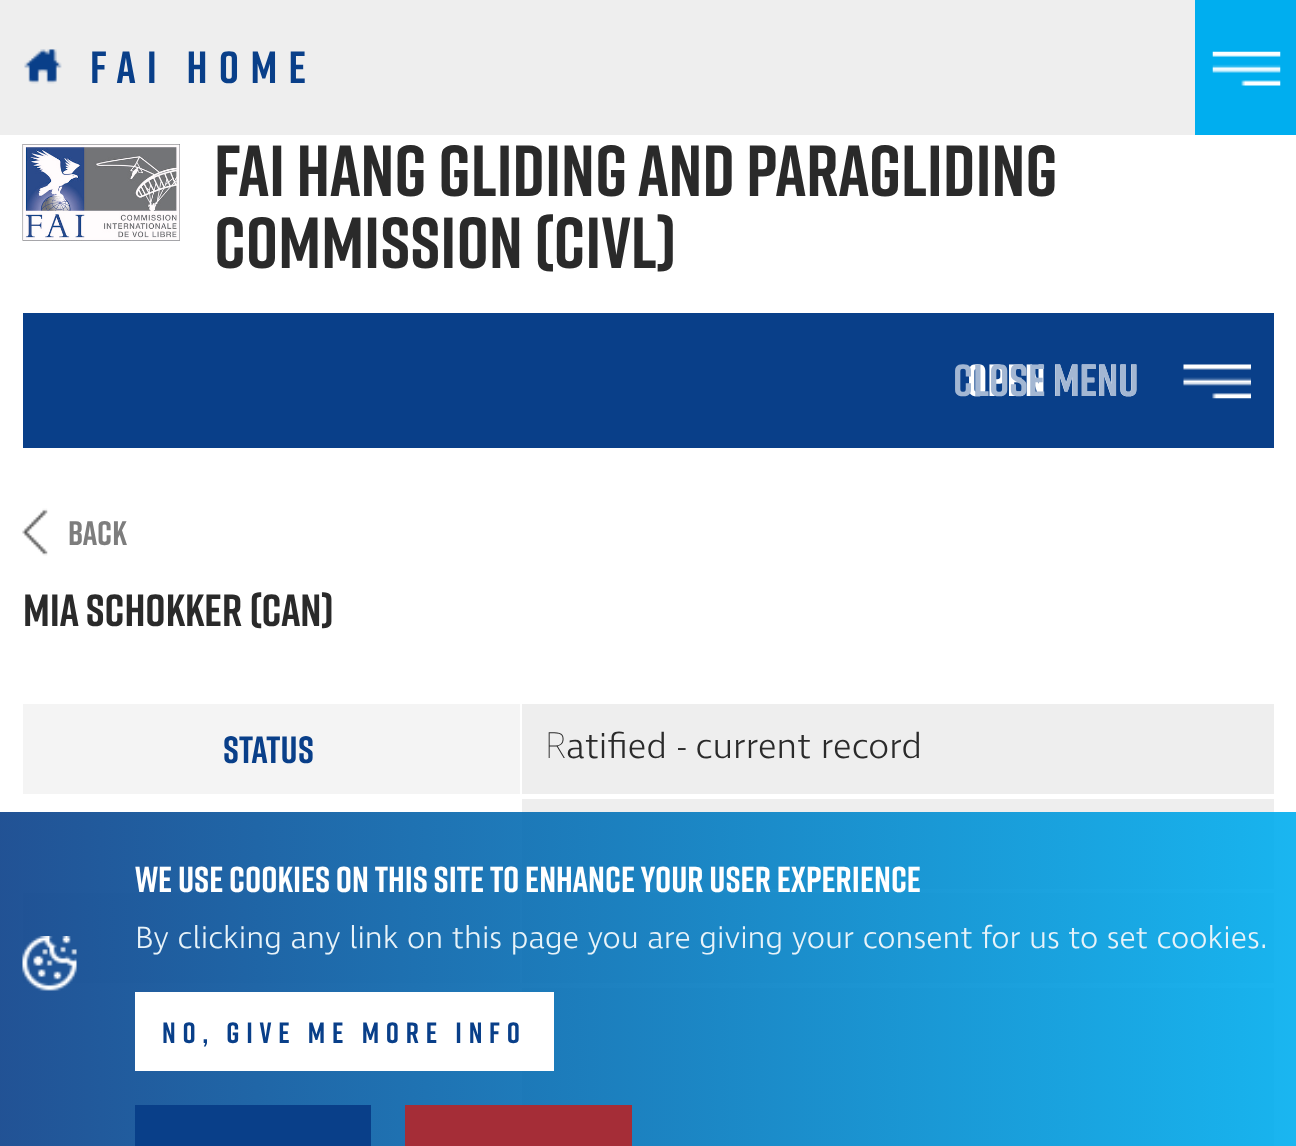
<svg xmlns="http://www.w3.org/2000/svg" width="1296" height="1146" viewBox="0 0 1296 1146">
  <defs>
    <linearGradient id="g1" gradientUnits="userSpaceOnUse" x1="0" y1="1032" x2="1296" y2="1032"><stop offset="0" stop-color="#093f89" stop-opacity="0.9"/><stop offset="1" stop-color="#00aeef" stop-opacity="0.9"/></linearGradient>
  </defs>
  <rect width="100%" height="100%" fill="#ffffff"/>
  <rect x="0" y="0" width="1195" height="135" fill="#eeeeee"/>
  <image x="24" y="49" width="38" height="35" href="img1.png"/>
  <text x="90" y="83" font-family="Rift" font-size="45" font-weight="bold" letter-spacing="11.25" fill="#093f89">FAI HOME</text>
  <rect x="1195" y="0" width="101" height="135" fill="#00aeef"/>
  <image x="1212" y="51" width="69" height="35" href="img2.png"/>
  <image x="22" y="144" width="158" height="97" href="img3.png"/>
  <text x="214" y="196" font-family="Rift" font-size="72" font-weight="bold" fill="#2a2a2a">FAI HANG GLIDING AND PARAGLIDING</text>
  <text x="214" y="268" font-family="Rift" font-size="72" font-weight="bold" fill="#2a2a2a">COMMISSION (CIVL)</text>
  <rect x="23" y="313" width="1251" height="135" fill="#093f89"/>
  <text x="967" y="396" font-family="Rift" font-size="45" font-weight="bold" fill="#ffffff">OPEN MENU</text>
  <text x="953" y="396" font-family="Rift" font-size="45" font-weight="bold" fill="#a3b7d3">CLOSE MENU</text>
  <image x="1183" y="364" width="68" height="35" href="img4.png"/>
  <image x="22" y="508" width="26" height="48" href="img5.png"/>
  <text x="68" y="545" font-family="Rift" font-size="34" font-weight="bold" fill="#7d7d7d">BACK</text>
  <text x="23" y="626" font-family="Rift" font-size="45" font-weight="bold" fill="#2a2a2a">MIA SCHOKKER (CAN)</text>
  <rect x="23" y="704" width="497" height="90" fill="#f4f4f4"/>
  <text x="223" y="763" font-family="Rift" font-size="38" font-weight="bold" letter-spacing="0.25" fill="#093f89">Status</text>
  <rect x="522" y="704" width="752" height="90" fill="#eeeeee"/>
  <text x="545" y="758" font-family="Noto Sans" font-size="36" font-weight="100" fill="#2a2a2a">R</text>
  <text x="566" y="758" font-family="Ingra" font-size="36" font-weight="300" fill="#2a2a2a">atified - current record</text>
  <rect x="522" y="799" width="752" height="90" fill="#eeeeee"/>
  <rect x="23" y="893" width="497" height="90" fill="#f4f4f4"/>
  <rect x="522" y="893" width="752" height="90" fill="#eeeeee"/>
  <rect x="522" y="988" width="752" height="158" fill="#eeeeee"/>
  <rect x="0" y="812" width="1296" height="334" fill="url(#g1)"/>
  <text x="135" y="892" font-family="Rift" font-size="36" font-weight="bold" fill="#ffffff">We use cookies on this site to enhance your user experience</text>
  <image x="22" y="936" width="55" height="55" href="img6.png"/>
  <text x="135" y="948" font-family="Ingra" font-size="31.5" font-weight="300" fill="#e8f3f9">By clicking any link on this page you are giving your consent for us to set cookies.</text>
  <rect x="135" y="992" width="419" height="79" fill="#ffffff"/>
  <text x="162" y="1043" font-family="Rift" font-size="29.25" font-weight="bold" letter-spacing="6.75" fill="#093f89">NO, GIVE ME MORE INFO</text>
  <rect x="135" y="1105" width="236" height="41" fill="#093f89"/>
  <rect x="405" y="1105" width="227" height="41" fill="#a52d37"/>
</svg>
